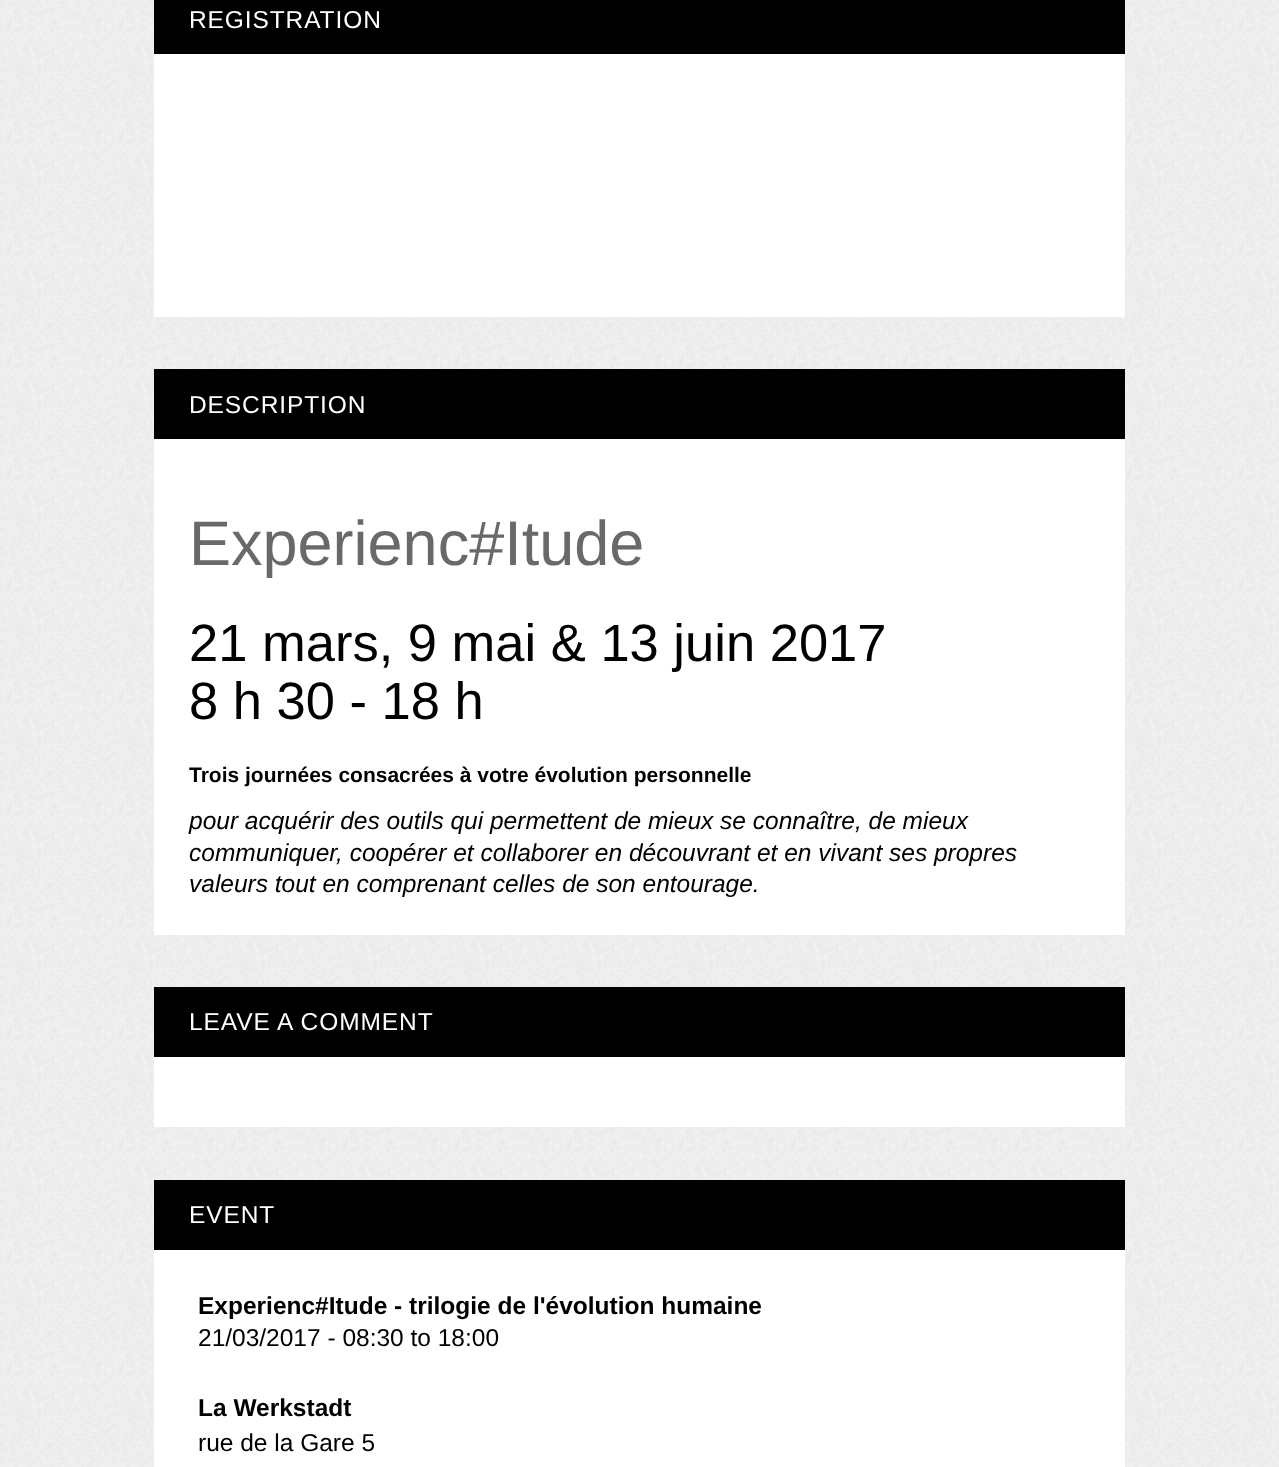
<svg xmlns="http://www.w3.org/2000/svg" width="1279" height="1467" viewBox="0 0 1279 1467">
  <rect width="100%" height="100%" fill="#ffffff"/>
  <image x="0" y="0" width="1279" height="1467" href="img1.png"/>
  <rect x="154" y="0" width="971" height="54" fill="#000000"/>
  <text x="189" y="28" font-family="Liberation Sans" font-size="24.5" letter-spacing="0.9" fill="#ffffff">REGISTRATION</text>
  <rect x="154" y="54" width="971" height="263" fill="#ffffff"/>
  <rect x="154" y="369" width="971" height="70" fill="#000000"/>
  <text x="189" y="413" font-family="Liberation Sans" font-size="24.5" letter-spacing="0.9" fill="#ffffff">DESCRIPTION</text>
  <rect x="154" y="439" width="971" height="496" fill="#ffffff"/>
  <text x="189" y="565" font-family="Liberation Sans" font-size="63" fill="#696969">Experienc#Itude</text>
  <text x="189" y="661" font-family="Liberation Sans" font-size="52.5" fill="#000000">21 mars, 9 mai &amp; 13 juin 2017</text>
  <text x="189" y="719" font-family="Liberation Sans" font-size="52.5" fill="#000000">8 h 30 - 18 h</text>
  <text x="189" y="782" font-family="Liberation Sans" font-size="21" font-weight="bold" fill="#000000">Trois journées consacrées à votre évolution personnelle</text>
  <text x="189" y="829" font-family="Liberation Sans" font-size="24.5" font-style="italic" fill="#000000">pour acquérir des outils qui permettent de mieux se connaître, de mieux</text>
  <text x="189" y="861" font-family="Liberation Sans" font-size="24.5" font-style="italic" fill="#000000">communiquer, coopérer et collaborer en découvrant et en vivant ses propres</text>
  <text x="189" y="892" font-family="Liberation Sans" font-size="24.5" font-style="italic" fill="#000000">valeurs tout en comprenant celles de son entourage.</text>
  <rect x="154" y="987" width="971" height="70" fill="#000000"/>
  <text x="189" y="1030" font-family="Liberation Sans" font-size="24.5" letter-spacing="0.9" fill="#ffffff">LEAVE A COMMENT</text>
  <rect x="154" y="1057" width="971" height="70" fill="#ffffff"/>
  <rect x="154" y="1180" width="971" height="70" fill="#000000"/>
  <text x="189" y="1223" font-family="Liberation Sans" font-size="24.5" letter-spacing="0.9" fill="#ffffff">EVENT</text>
  <rect x="154" y="1250" width="971" height="217" fill="#ffffff"/>
  <text x="198" y="1314" font-family="Liberation Sans" font-size="24.5" font-weight="bold" fill="#000000">Experienc#Itude - trilogie de l'évolution humaine</text>
  <text x="198" y="1346" font-family="Liberation Sans" font-size="24.5" fill="#000000">21/03/2017 - 08:30 to 18:00</text>
  <text x="198" y="1416" font-family="Liberation Sans" font-size="24.5" font-weight="bold" fill="#000000">La Werkstadt</text>
  <text x="198" y="1451" font-family="Liberation Sans" font-size="24.5" fill="#000000">rue de la Gare 5</text>
</svg>
